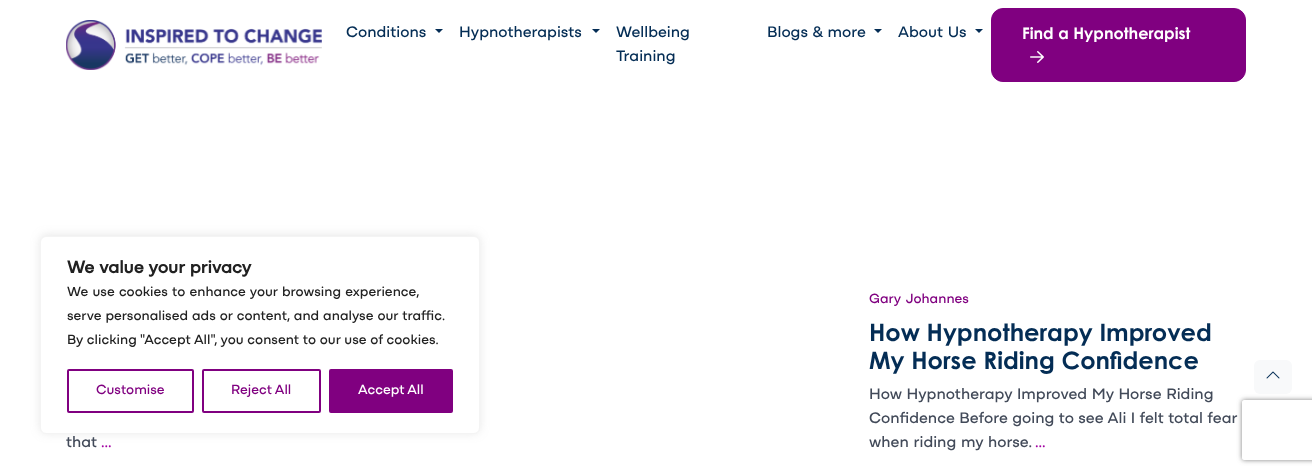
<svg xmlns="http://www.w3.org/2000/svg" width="1312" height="474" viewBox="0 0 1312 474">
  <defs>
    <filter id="blur1" x="-50%" y="-200%" width="200%" height="500%"><feGaussianBlur stdDeviation="5"/></filter>
    <clipPath id="clip1"><path d="M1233 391H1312V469H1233ZM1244 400H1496C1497 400 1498 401 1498 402V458C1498 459 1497 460 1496 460H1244C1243 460 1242 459 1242 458V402C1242 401 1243 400 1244 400Z" clip-rule="evenodd"/></clipPath>
    <filter id="blur2" x="-50%" y="-200%" width="200%" height="500%"><feGaussianBlur stdDeviation="2.5"/></filter>
  </defs>
  <rect width="100%" height="100%" fill="#ffffff"/>
  <image x="66" y="20" width="256" height="50" href="img1.png"/>
  <text x="346" y="37" font-family="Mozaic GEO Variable" font-size="16" fill="#042d55">Conditions</text>
  <path d="M435 29H443L439 33Z" fill="#042d55"/>
  <text x="459" y="37" font-family="Mozaic GEO Variable" font-size="16" fill="#042d55">Hypnotherapists</text>
  <path d="M592 29H600L596 33Z" fill="#042d55"/>
  <text x="616" y="37" font-family="Mozaic GEO Variable" font-size="16" fill="#042d55">Wellbeing</text>
  <text x="616" y="61" font-family="Mozaic GEO Variable" font-size="16" fill="#042d55">Training</text>
  <text x="767" y="37" word-spacing="1" font-family="Mozaic GEO Variable" font-size="16" fill="#042d55">Blogs &amp; more</text>
  <path d="M874 29H882L878 33Z" fill="#042d55"/>
  <text x="898" y="37" word-spacing="1" font-family="Mozaic GEO Variable" font-size="16" fill="#042d55">About Us</text>
  <path d="M975 29H983L979 33Z" fill="#042d55"/>
  <rect x="991.5" y="8.5" width="254" height="73" rx="11.5" fill="#800080" stroke="#800080"/>
  <text x="1022" y="39" font-family="Century Gothic" font-size="16" font-weight="bold" fill="#ffffff">Find a Hypnotherapist</text>
  <image x="1030" y="51" width="14" height="12" href="img2.png"/>
  <rect x="40" y="235" width="440" height="198" rx="6" fill="#acabab" fill-opacity="0.3" filter="url(#blur1)"/>
  <rect x="40.5" y="236.5" width="439" height="197" rx="5.5" fill="#ffffff" stroke="#f4f4f4"/>
  <text x="67" y="273" word-spacing="1" font-family="Mozaic GEO Variable" font-size="18" font-weight="bold" fill="#212121">We value your privacy</text>
  <text x="67" y="296" word-spacing="1" font-family="Mozaic GEO Variable" font-size="14" fill="#212121">We use cookies to enhance your browsing experience,</text>
  <text x="67" y="320" word-spacing="0.75" font-family="Mozaic GEO Variable" font-size="14" fill="#212121">serve personalised ads or content, and analyse our traffic.</text>
  <text x="67" y="344" word-spacing="0.5" font-family="Mozaic GEO Variable" font-size="14" fill="#212121">By clicking "Accept All", you consent to our use of cookies.</text>
  <rect x="68" y="370" width="125" height="42" rx="1" fill="none" stroke="#800080" stroke-width="2"/>
  <text x="96" y="394" font-family="Mozaic GEO Variable" font-size="14" fill="#800080">Customise</text>
  <rect x="203" y="370" width="117" height="42" rx="1" fill="none" stroke="#800080" stroke-width="2"/>
  <text x="231" y="394" font-family="Mozaic GEO Variable" font-size="14" fill="#800080">Reject All</text>
  <rect x="330" y="370" width="122" height="42" rx="1" fill="#800080" stroke="#800080" stroke-width="2"/>
  <text x="358" y="394" font-family="Mozaic GEO Variable" font-size="14" fill="#ffffff">Accept All</text>
  <text x="66" y="447" font-family="Mozaic GEO Variable" font-size="16" fill="#424a59">that</text>
  <text x="101" y="447" font-family="Mozaic GEO Variable" font-size="16" fill="#a200a2">...</text>
  <text x="869" y="303" word-spacing="2" font-family="Mozaic GEO Variable" font-size="14" fill="#800080">Gary Johannes</text>
  <text x="869" y="341" font-family="Century Gothic" font-size="24" font-weight="bold" fill="#042d55">How Hypnotherapy Improved</text>
  <text x="869" y="369" font-family="Century Gothic" font-size="24" font-weight="bold" fill="#042d55">My Horse Riding Confidence</text>
  <text x="869" y="399" word-spacing="1" font-family="Mozaic GEO Variable" font-size="16" fill="#424a59">How Hypnotherapy Improved My Horse Riding</text>
  <text x="869" y="423" word-spacing="0.75" font-family="Mozaic GEO Variable" font-size="16" fill="#424a59">Confidence Before going to see Ali I felt total fear</text>
  <text x="869" y="447" word-spacing="1" font-family="Mozaic GEO Variable" font-size="16" fill="#424a59">when riding my horse.</text>
  <text x="1035" y="447" font-family="Mozaic GEO Variable" font-size="16" fill="#a200a2">...</text>
  <g clip-path="url(#clip1)">
    <rect x="1242" y="400" width="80" height="60" rx="2" fill="#808080" filter="url(#blur2)"/>
  </g>
  <rect x="1254" y="360" width="38" height="34" rx="6" fill="#f8f9fa"/>
  <image x="1266" y="371" width="14" height="8" href="img3.png"/>
</svg>
